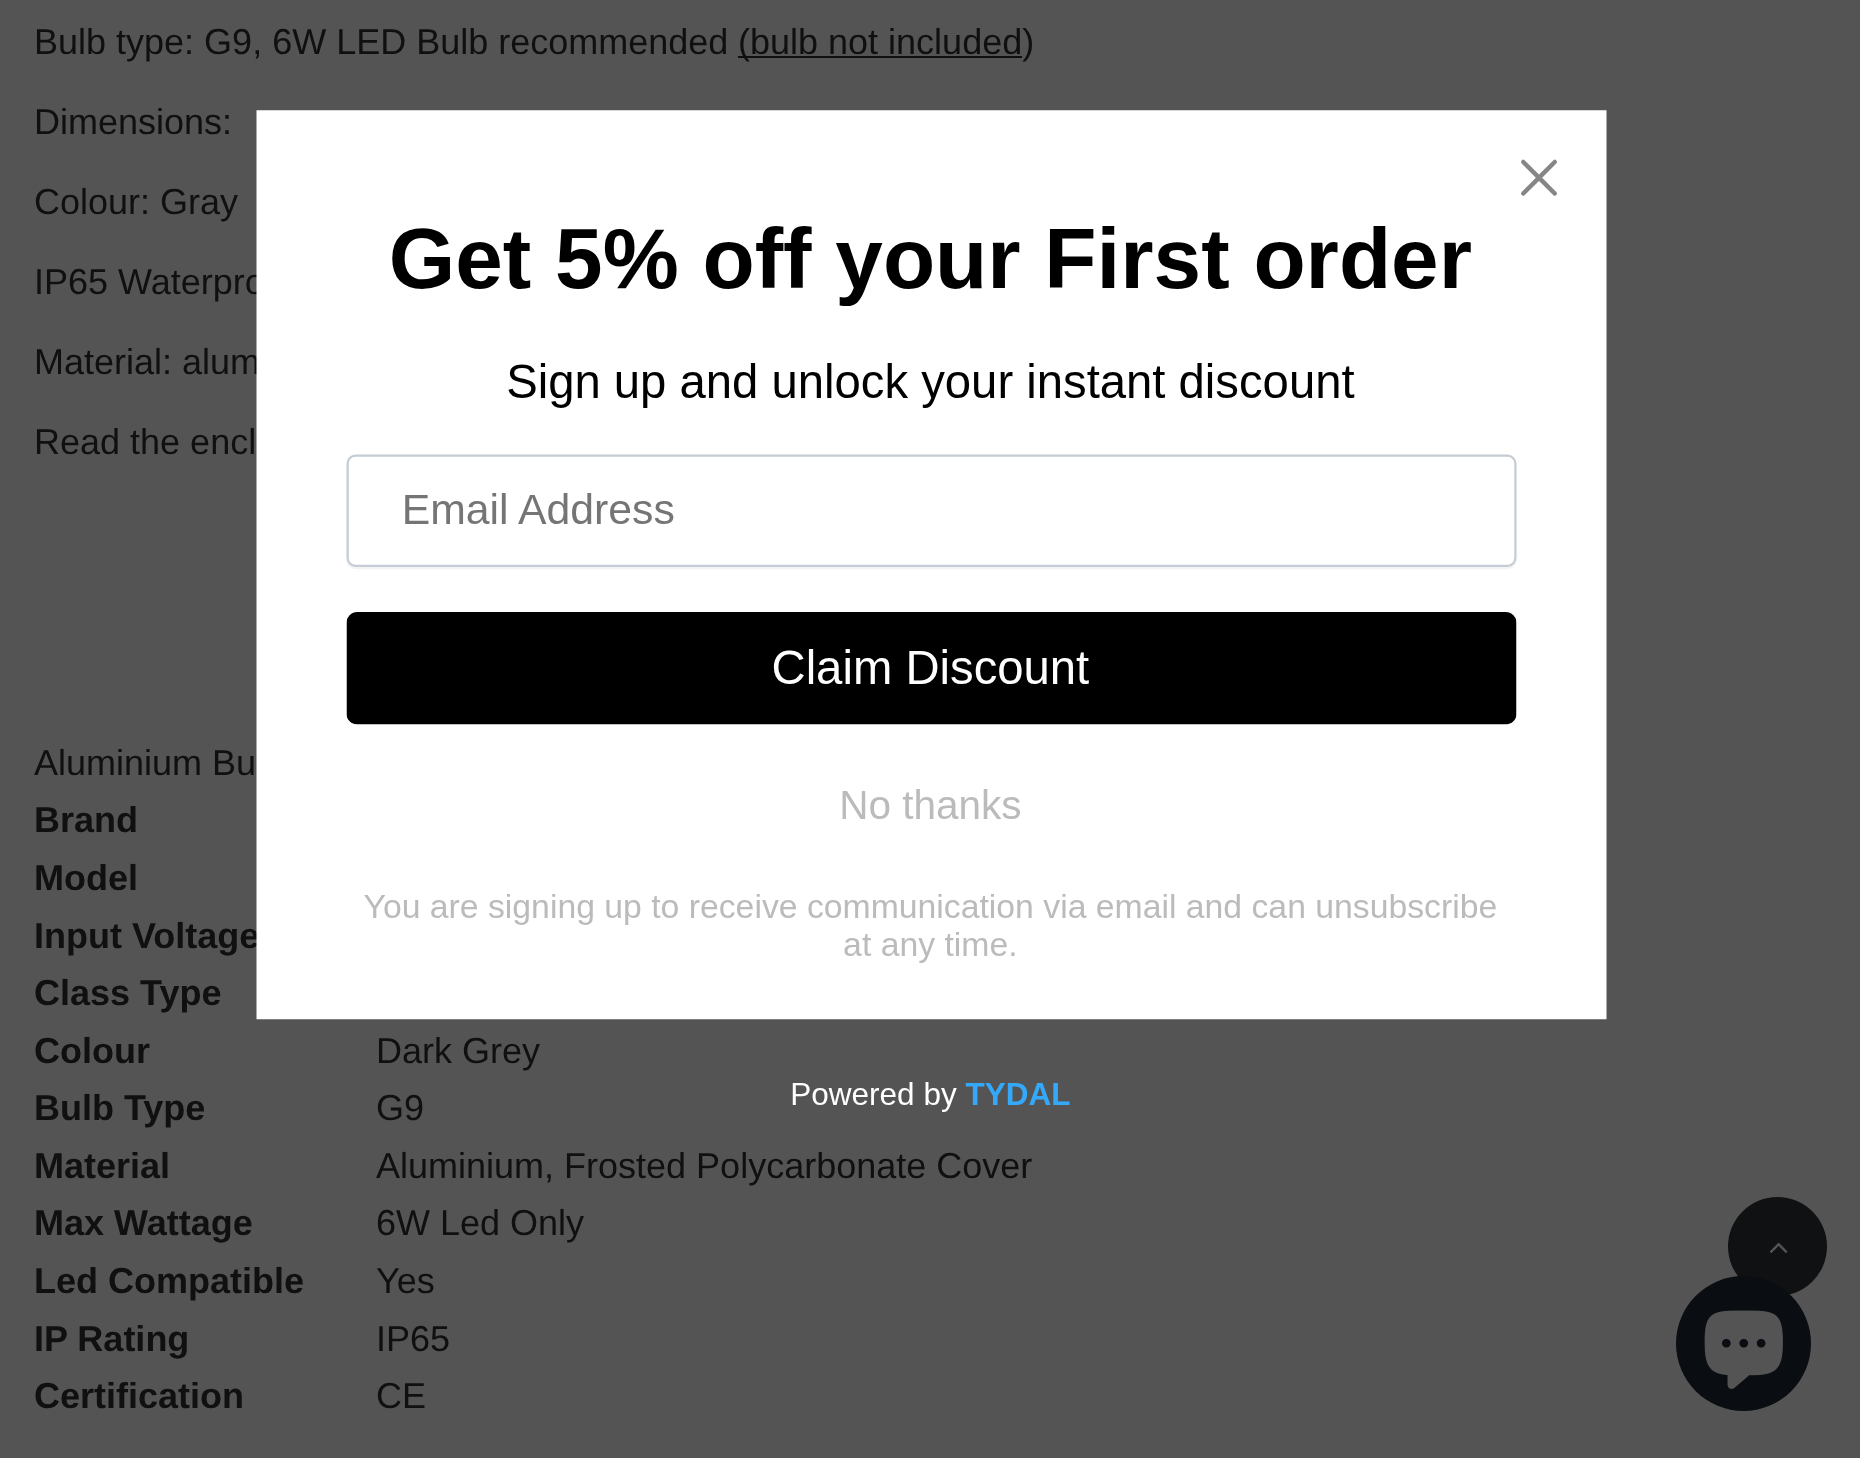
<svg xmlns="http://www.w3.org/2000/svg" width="1860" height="1458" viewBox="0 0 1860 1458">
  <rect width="100%" height="100%" fill="#ffffff"/>
  <text x="34" y="54" font-family="Liberation Sans" font-size="36" fill="#333333">Bulb type: G9, 6W LED Bulb recommended</text>
  <rect x="738" y="56" width="284" height="2" fill="#333333"/>
  <text x="738" y="54" font-family="Liberation Sans" font-size="36" fill="#333333">(bulb not included)</text>
  <text x="34" y="134" font-family="Liberation Sans" font-size="36" fill="#333333">Dimensions:</text>
  <text x="34" y="214" font-family="Liberation Sans" font-size="36" fill="#333333">Colour: Gray</text>
  <text x="34" y="294" font-family="Liberation Sans" font-size="36" fill="#333333">IP65 Waterpro</text>
  <text x="34" y="374" font-family="Liberation Sans" font-size="36" fill="#333333">Material: alum</text>
  <text x="34" y="454" font-family="Liberation Sans" font-size="36" fill="#333333">Read the encl</text>
  <text x="34" y="775" font-family="Liberation Sans" font-size="36" fill="#333333">Aluminium Bu</text>
  <text x="34" y="832" font-family="Liberation Sans" font-size="36" font-weight="bold" fill="#333333">Brand</text>
  <text x="34" y="890" font-family="Liberation Sans" font-size="36" font-weight="bold" fill="#333333">Model</text>
  <text x="34" y="948" font-family="Liberation Sans" font-size="36" font-weight="bold" fill="#333333">Input Voltage</text>
  <text x="34" y="1005" font-family="Liberation Sans" font-size="36" font-weight="bold" fill="#333333">Class Type</text>
  <text x="34" y="1063" font-family="Liberation Sans" font-size="36" font-weight="bold" fill="#333333">Colour</text>
  <text x="376" y="1063" font-family="Liberation Sans" font-size="36" fill="#333333">Dark Grey</text>
  <text x="34" y="1120" font-family="Liberation Sans" font-size="36" font-weight="bold" fill="#333333">Bulb Type</text>
  <text x="376" y="1120" font-family="Liberation Sans" font-size="36" fill="#333333">G9</text>
  <text x="34" y="1178" font-family="Liberation Sans" font-size="36" font-weight="bold" fill="#333333">Material</text>
  <text x="376" y="1178" font-family="Liberation Sans" font-size="36" fill="#333333">Aluminium, Frosted Polycarbonate Cover</text>
  <text x="34" y="1235" font-family="Liberation Sans" font-size="36" font-weight="bold" fill="#333333">Max Wattage</text>
  <text x="376" y="1235" font-family="Liberation Sans" font-size="36" fill="#333333">6W Led Only</text>
  <text x="34" y="1293" font-family="Liberation Sans" font-size="36" font-weight="bold" fill="#333333">Led Compatible</text>
  <text x="376" y="1293" font-family="Liberation Sans" font-size="36" fill="#333333">Yes</text>
  <text x="34" y="1351" font-family="Liberation Sans" font-size="36" font-weight="bold" fill="#333333">IP Rating</text>
  <text x="376" y="1351" font-family="Liberation Sans" font-size="36" fill="#333333">IP65</text>
  <text x="34" y="1408" font-family="Liberation Sans" font-size="36" font-weight="bold" fill="#333333">Certification</text>
  <text x="376" y="1408" font-family="Liberation Sans" font-size="36" fill="#333333">CE</text>
  <circle cx="1777.5" cy="1246.5" r="49.5" fill="#2e353b"/>
  <image x="1769" y="1242" width="19" height="11" href="img2.png"/>
  <circle cx="1743.5" cy="1343.5" r="67.5" fill="#202a36"/>
  <image x="1704" y="1310" width="79" height="79" href="img3.png"/>
  <image x="0" y="0" width="1860" height="1458" href="img1.png"/>
</svg>
